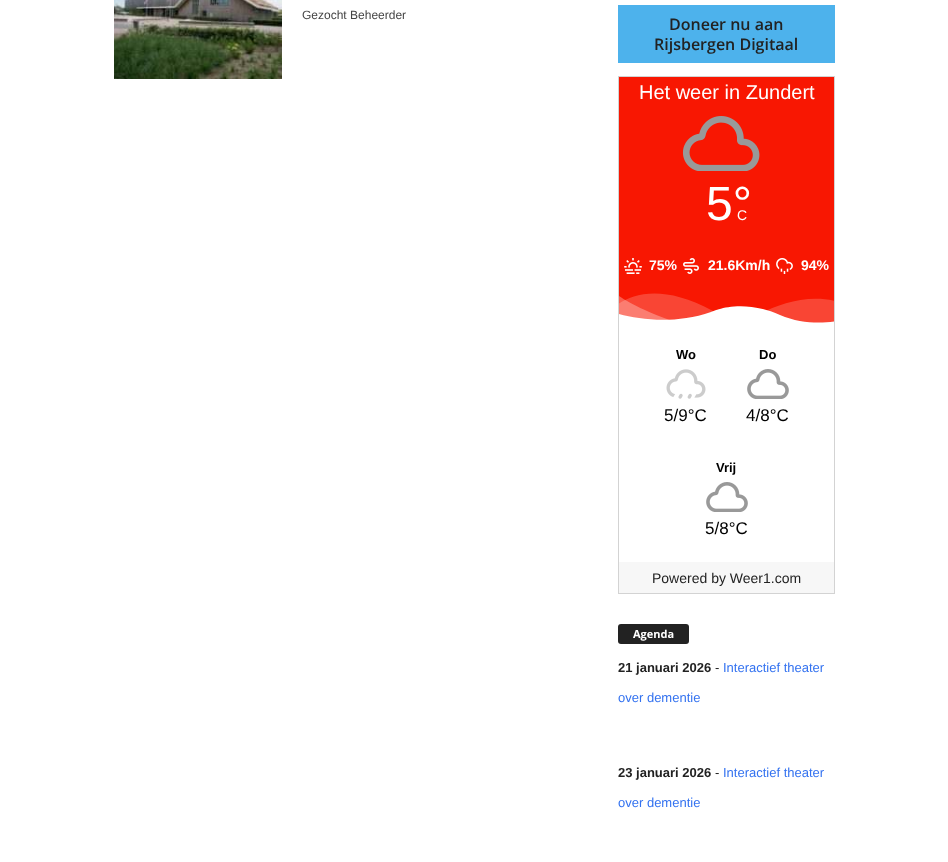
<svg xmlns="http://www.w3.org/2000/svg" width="948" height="862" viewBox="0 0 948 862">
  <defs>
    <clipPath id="clip1"><rect x="619" y="291" width="215" height="37"/></clipPath>
  </defs>
  <rect width="100%" height="100%" fill="#ffffff"/>
  <image x="114" y="0" width="168" height="79" href="img1.png"/>
  <text x="302" y="19" font-family="Liberation Sans" font-size="12" fill="#444444">Gezocht Beheerder</text>
  <rect x="618" y="5" width="217" height="58" fill="#4db2ec"/>
  <text x="669" y="30" font-family="Open Sans" font-size="16" font-weight="600" fill="#222222">Doneer nu aan</text>
  <text x="654" y="50" font-family="Open Sans" font-size="16" font-weight="600" fill="#222222">Rijsbergen Digitaal</text>
  <rect x="618.5" y="76.5" width="216" height="517" fill="none" stroke="#d3d3d3"/>
  <rect x="619" y="77" width="215" height="246" fill="#f81702"/>
  <text x="639" y="99" font-family="Liberation Sans" font-size="20" fill="#ffffff">Het weer in Zundert</text>
  <image x="682" y="116" width="78" height="55" href="img2.png"/>
  <text x="706" y="220" font-family="Liberation Sans" font-size="48" fill="#ffffff">5°</text>
  <text x="737" y="220" font-family="Liberation Sans" font-size="14" fill="#ffffff">C</text>
  <image x="624" y="258" width="18" height="16" href="img3.png"/>
  <text x="649" y="270" font-family="Liberation Sans" font-size="14" font-weight="bold" fill="#ffffff">75%</text>
  <image x="683" y="258" width="16" height="16" href="img4.png"/>
  <text x="708" y="270" font-family="Liberation Sans" font-size="14" font-weight="bold" fill="#ffffff">21.6Km/h</text>
  <image x="776" y="258" width="17" height="16" href="img5.png"/>
  <text x="801" y="270" font-family="Liberation Sans" font-size="14" font-weight="bold" fill="#ffffff">94%</text>
  <g clip-path="url(#clip1)">
    <path d="M604 282C604 282 614 303 688 326H855V490C855 490 604 516 604 490Z" fill="#fa5d4e"/>
    <path d="M604 318C604 318 634 268 713 311L746 322C746 322 808 278 858 311V497H604Z" fill="#ffffff" fill-opacity="0.2"/>
    <path d="M593 305C593 305 650 333 711 312C711 312 740 297 780 315C820 332 860 315 860 315V493H593Z" fill="#ffffff"/>
  </g>
  <text x="676" y="359" font-family="Liberation Sans" font-size="13" font-weight="bold" fill="#000000">Wo</text>
  <image x="666" y="369" width="40" height="30" href="img6.png"/>
  <text x="664" y="421" font-family="Liberation Sans" font-size="17" fill="#000000">5/9°C</text>
  <text x="759" y="359" font-family="Liberation Sans" font-size="13" font-weight="bold" fill="#000000">Do</text>
  <image x="747" y="369" width="42" height="30" href="img7.png"/>
  <text x="746" y="421" font-family="Liberation Sans" font-size="17" fill="#000000">4/8°C</text>
  <text x="716" y="472" font-family="Liberation Sans" font-size="13" font-weight="bold" fill="#000000">Vrij</text>
  <image x="706" y="482" width="42" height="30" href="img7.png"/>
  <text x="705" y="534" font-family="Liberation Sans" font-size="17" fill="#000000">5/8°C</text>
  <rect x="619" y="562" width="215" height="31" fill="#f7f7f7"/>
  <text x="652" y="583" font-family="Liberation Sans" font-size="14" fill="#222222">Powered by Weer1.com</text>
  <rect x="618" y="624" width="71" height="20" rx="3" fill="#222222"/>
  <text x="633" y="638" font-family="Open Sans" font-size="11" font-weight="bold" fill="#ffffff">Agenda</text>
  <text x="618" y="672" font-family="Liberation Sans" font-size="13" font-weight="bold" fill="#222222">21 januari 2026</text>
  <text x="715" y="672" font-family="Liberation Sans" font-size="13" fill="#222222">-</text>
  <text x="723" y="672" font-family="Liberation Sans" font-size="13" fill="#3372f0">Interactief theater</text>
  <text x="618" y="702" font-family="Liberation Sans" font-size="13" fill="#3372f0">over dementie</text>
  <text x="618" y="777" font-family="Liberation Sans" font-size="13" font-weight="bold" fill="#222222">23 januari 2026</text>
  <text x="715" y="777" font-family="Liberation Sans" font-size="13" fill="#222222">-</text>
  <text x="723" y="777" font-family="Liberation Sans" font-size="13" fill="#3372f0">Interactief theater</text>
  <text x="618" y="807" font-family="Liberation Sans" font-size="13" fill="#3372f0">over dementie</text>
</svg>
